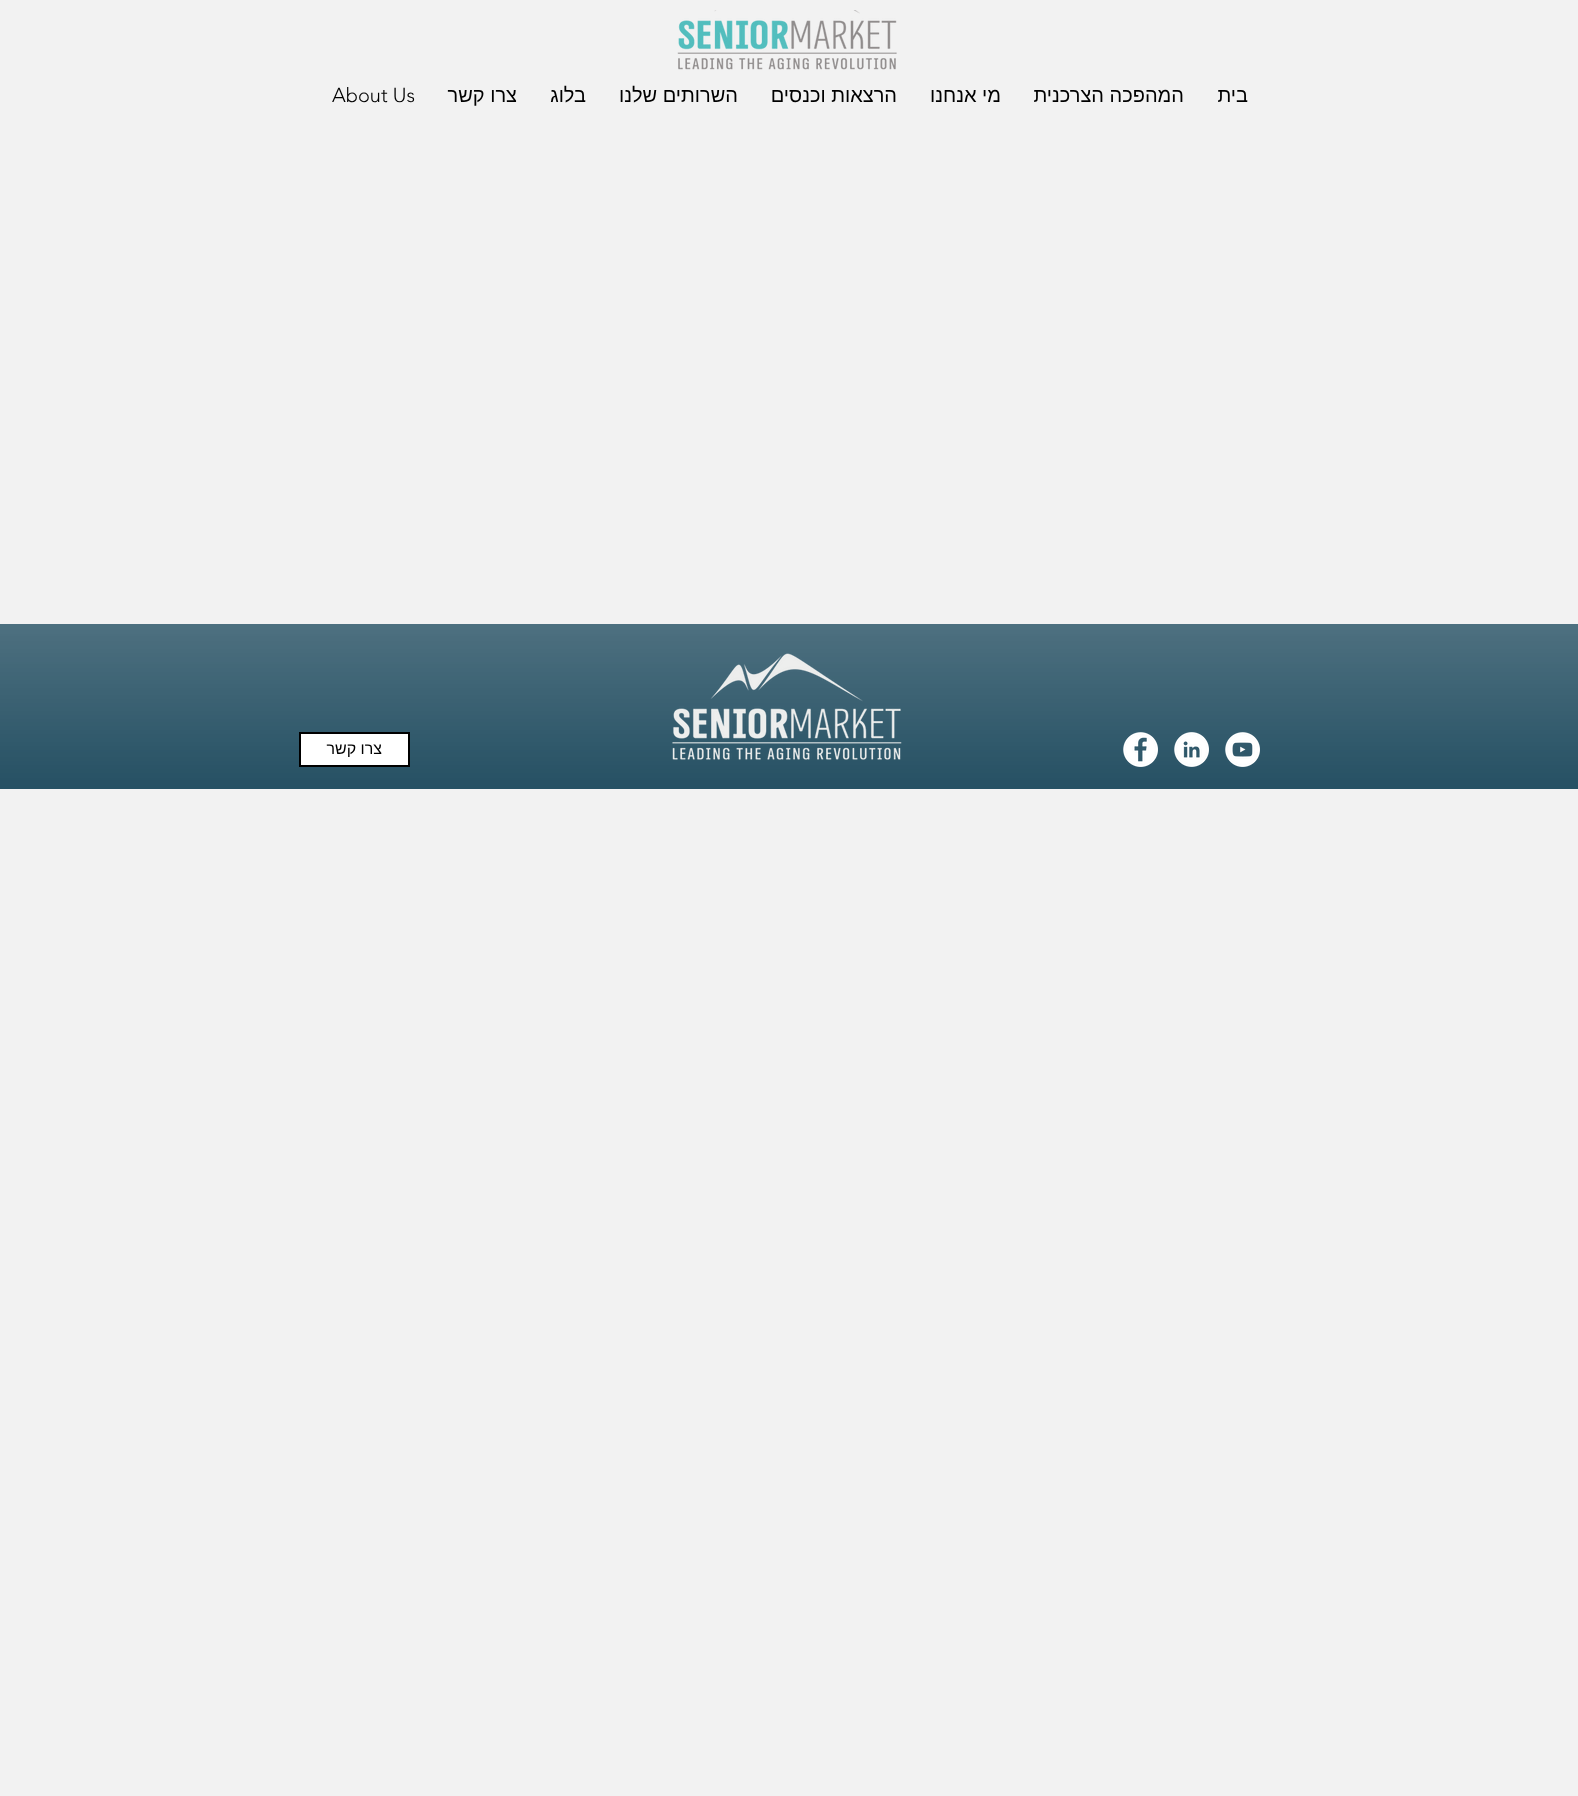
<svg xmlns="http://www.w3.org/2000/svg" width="1578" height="1796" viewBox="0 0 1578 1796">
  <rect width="100%" height="100%" fill="#f2f2f2"/>
  <image x="677" y="10" width="220" height="60" href="img1.png"/>
  <text x="1248" y="102" font-family="Liberation Sans" font-size="20" direction="rtl" fill="#000000">בית</text>
  <text x="1184" y="102" font-family="Liberation Sans" font-size="20" direction="rtl" fill="#000000">המהפכה הצרכנית</text>
  <text x="1001" y="102" font-family="Liberation Sans" font-size="20" direction="rtl" fill="#000000">מי אנחנו</text>
  <text x="897" y="102" font-family="Liberation Sans" font-size="20" direction="rtl" fill="#000000">הרצאות וכנסים</text>
  <text x="738" y="102" font-family="Liberation Sans" font-size="20" direction="rtl" fill="#000000">השרותים שלנו</text>
  <text x="586" y="102" font-family="Liberation Sans" font-size="20" direction="rtl" fill="#000000">בלוג</text>
  <text x="517" y="102" font-family="Liberation Sans" font-size="20" direction="rtl" fill="#000000">צרו קשר</text>
  <text x="332" y="102" font-family="'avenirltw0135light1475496'" font-size="20" font-weight="300" fill="#000000">About Us</text>
  <rect x="0" y="624" width="1578" height="165" fill="#103f54"/>
  <image x="0" y="624" width="1578" height="165" href="img2.png"/>
  <image x="1225" y="732" width="35" height="35" href="img3.png"/>
  <image x="1174" y="732" width="35" height="35" href="img4.png"/>
  <image x="1123" y="732" width="35" height="35" href="img5.png"/>
  <image x="672" y="653" width="230" height="107" href="img6.png"/>
  <rect x="300" y="733" width="109" height="33" fill="#ffffff" stroke="#000000" stroke-width="2"/>
  <text x="382" y="754" font-family="Liberation Sans" font-size="16" direction="rtl" fill="#000000">צרו קשר</text>
</svg>
